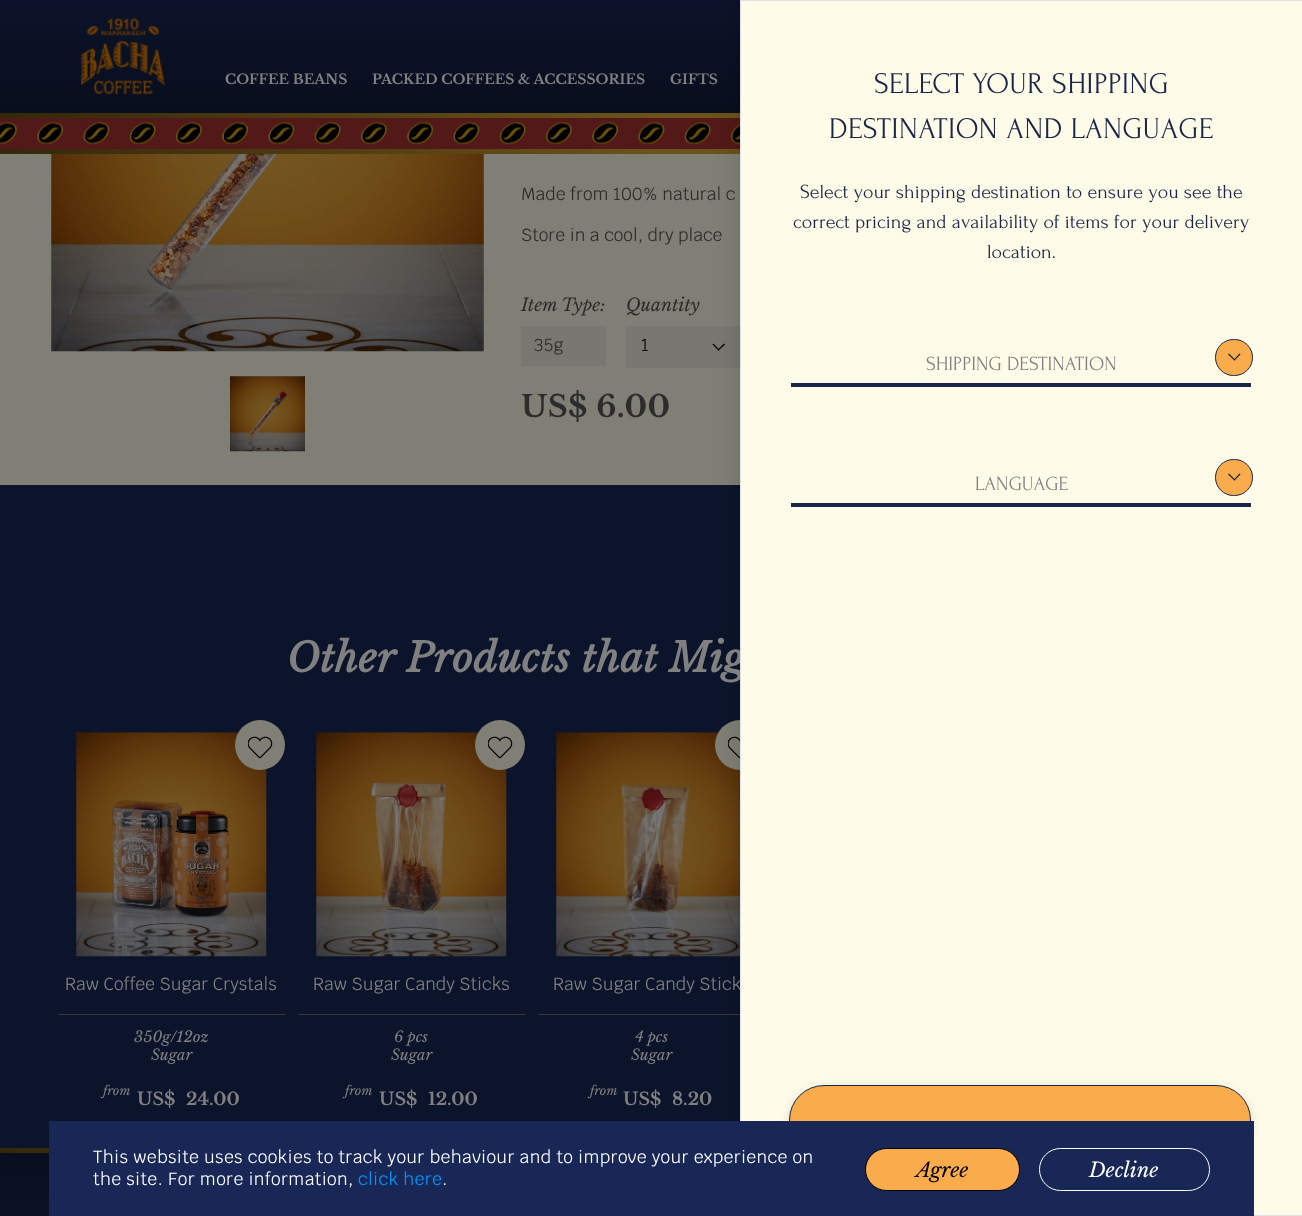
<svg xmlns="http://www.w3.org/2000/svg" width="1302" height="1216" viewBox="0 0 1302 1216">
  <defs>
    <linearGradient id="g1" gradientUnits="userSpaceOnUse" x1="651" y1="0" x2="651" y2="113"><stop offset="0" stop-color="#0c132a"/><stop offset="1" stop-color="#090e1d"/></linearGradient>
    <linearGradient id="g2" gradientUnits="userSpaceOnUse" x1="0" y1="115" x2="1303" y2="115"><stop offset="0" stop-color="#34270c"/><stop offset="0.5" stop-color="#6b521b"/><stop offset="1" stop-color="#674e17"/></linearGradient>
    <linearGradient id="g3" gradientUnits="userSpaceOnUse" x1="0" y1="151" x2="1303" y2="151"><stop offset="0" stop-color="#34270c"/><stop offset="0.5" stop-color="#6b521b"/><stop offset="1" stop-color="#674e17"/></linearGradient>
    <filter id="blur1" x="-50%" y="-200%" width="200%" height="500%"><feGaussianBlur stdDeviation="12.5"/></filter>
    <filter id="blur2" x="-50%" y="-200%" width="200%" height="500%"><feGaussianBlur stdDeviation="5"/></filter>
    <linearGradient id="g4" gradientUnits="userSpaceOnUse" x1="651" y1="1216" x2="651" y2="1148"><stop offset="0" stop-color="#0b1227"/><stop offset="1" stop-color="#090e1d"/></linearGradient>
    <linearGradient id="g5" gradientUnits="userSpaceOnUse" x1="0" y1="1150" x2="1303" y2="1150"><stop offset="0" stop-color="#34270c"/><stop offset="0.5" stop-color="#6b521b"/><stop offset="1" stop-color="#674e17"/></linearGradient>
  </defs>
  <rect width="100%" height="100%" fill="#807f75"/>
  <rect x="0" y="0" width="740" height="113" fill="url(#g1)"/>
  <image x="81" y="18" width="84" height="76" href="img1.png"/>
  <text x="225" y="84" font-family="Libre Baskerville" font-size="13.75" font-weight="bold" fill="#808080">COFFEE BEANS</text>
  <text x="372" y="84" font-family="Libre Baskerville" font-size="13.75" font-weight="bold" fill="#808080">PACKED COFFEES &amp; ACCESSORIES</text>
  <text x="670" y="84" font-family="Libre Baskerville" font-size="13.75" font-weight="bold" fill="#808080">GIFTS</text>
  <rect x="0" y="118" width="740" height="31" fill="#521918"/>
  <image x="0" y="122" width="740" height="23" href="img2.png"/>
  <rect x="0" y="113" width="740" height="5" fill="url(#g2)"/>
  <rect x="0" y="149" width="740" height="5" fill="url(#g3)"/>
  <rect x="626" y="326" width="114" height="42" fill="#797771"/>
  <path d="M724 343.5L725 344.5L718.5 350.5L717.5 350Z" fill="#000000"/>
  <path d="M713.5 343.5L719.5 350L718.5 350.5L712.5 344.5Z" fill="#000000"/>
  <rect x="0" y="485" width="740" height="663" fill="#0c142b"/>
  <image x="556" y="732" width="184" height="225" href="img9.png"/>
  <circle cx="740" cy="745" r="25" fill="#807f75"/>
  <image x="728" y="736" width="12" height="23" href="img8.png"/>
  <rect x="538" y="1014" width="202" height="1" fill="#383838"/>
  <rect x="735" y="0" width="563" height="1216" fill="#000000" fill-opacity="0.1" filter="url(#blur1)"/>
  <text x="287" y="672" font-family="Libre Baskerville" font-size="40" font-weight="bold" font-style="italic" letter-spacing="0.4" fill="#808080">Other Products that Mig</text>
  <text x="553" y="990" font-family="Krub" font-size="17.5" fill="#808080">Raw Sugar Candy Stick</text>
  <rect x="740.5" y="0.5" width="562" height="1215" fill="#fffbe9" stroke="#dee2e6"/>
  <text x="874" y="93" font-family="Forum" font-size="30" letter-spacing="0.4" fill="#1a2548">SELECT YOUR SHIPPING</text>
  <text x="829" y="138" font-family="Forum" font-size="30" letter-spacing="0.4" fill="#1a2548">DESTINATION AND LANGUAGE</text>
  <text x="800" y="198" font-family="Forum" font-size="20" fill="#1a2548">Select your shipping destination to ensure you see the</text>
  <text x="793" y="228" font-family="Forum" font-size="20" fill="#1a2548">correct pricing and availability of items for your delivery</text>
  <text x="987" y="258" font-family="Forum" font-size="20" fill="#1a2548">location.</text>
  <rect x="791" y="383" width="460" height="4" fill="#1a2548"/>
  <rect x="1215.5" y="339.5" width="37" height="36" rx="18" fill="#faac4d" stroke="#1a2548"/>
  <text x="926" y="370" font-family="Forum" font-size="20" fill="#808080">SHIPPING DESTINATION</text>
  <path d="M1239.5 353.5L1240.5 354.5L1234.5 360.5L1233.5 360Z" fill="#1a2548"/>
  <path d="M1229 353.5L1235.5 360L1234.5 360.5L1228 354.5Z" fill="#1a2548"/>
  <rect x="791" y="503" width="460" height="4" fill="#1a2548"/>
  <rect x="1215.5" y="459.5" width="37" height="36" rx="18" fill="#faac4d" stroke="#1a2548"/>
  <text x="975" y="490" font-family="Forum" font-size="20" fill="#808080">LANGUAGE</text>
  <path d="M1239.5 473.5L1240.5 474.5L1234.5 480.5L1233.5 480Z" fill="#1a2548"/>
  <path d="M1229 473.5L1235.5 480L1234.5 480.5L1228 474.5Z" fill="#1a2548"/>
  <rect x="789" y="1088" width="462" height="70" rx="35" fill="#000000" fill-opacity="0.15" filter="url(#blur2)"/>
  <rect x="789.5" y="1085.5" width="461" height="69" rx="34.5" fill="#faac4d" stroke="#1a2548"/>
  <image x="51" y="154" width="433" height="198" href="img3.png"/>
  <image x="230" y="376" width="75" height="76" href="img4.png"/>
  <text x="521" y="200" font-family="Krub" font-size="17.5" fill="#2c2c2c">Made from 100% natural c</text>
  <text x="521" y="241" font-family="Krub" font-size="17.5" fill="#2c2c2c">Store in a cool, dry place</text>
  <text x="521" y="311" font-family="Libre Baskerville" font-size="17.5" font-style="italic" fill="#2c2c2c">Item Type:</text>
  <rect x="521" y="326" width="85" height="40" fill="#797771"/>
  <text x="534" y="351" font-family="Krub" font-size="17.5" fill="#2c2c2c">35g</text>
  <text x="626" y="311" font-family="Libre Baskerville" font-size="17.5" font-style="italic" fill="#2c2c2c">Quantity</text>
  <text x="641" y="351" font-family="Krub" font-size="17.5" fill="#000000">1</text>
  <text x="521" y="417" font-family="Libre Baskerville" font-size="30" font-weight="bold" letter-spacing="0.4" fill="#2c2c2c">US$ 6.00</text>
  <image x="76" y="732" width="191" height="225" href="img6.png"/>
  <circle cx="260" cy="745" r="25" fill="#807f75"/>
  <image x="248" y="736" width="25" height="23" href="img5.png"/>
  <rect x="58" y="1014" width="227" height="1" fill="#383838"/>
  <text x="65" y="990" font-family="Krub" font-size="17.5" fill="#808080">Raw Coffee Sugar Crystals</text>
  <text x="134" y="1042" font-family="Libre Baskerville" font-size="15" font-style="italic" fill="#808080">350g/12oz</text>
  <text x="151" y="1060" font-family="Libre Baskerville" font-size="15" font-style="italic" fill="#808080">Sugar</text>
  <text x="103" y="1095" font-family="Libre Baskerville" font-size="12.5" font-style="italic" fill="#808080">from</text>
  <text x="137" y="1105" font-family="Libre Baskerville" font-size="17.5" font-weight="bold" fill="#808080">US$</text>
  <text x="186" y="1105" font-family="Libre Baskerville" font-size="17.5" font-weight="bold" fill="#808080">24.00</text>
  <image x="316" y="732" width="191" height="225" href="img7.png"/>
  <circle cx="500" cy="745" r="25" fill="#807f75"/>
  <image x="488" y="736" width="25" height="23" href="img5.png"/>
  <rect x="298" y="1014" width="227" height="1" fill="#383838"/>
  <text x="313" y="990" font-family="Krub" font-size="17.5" fill="#808080">Raw Sugar Candy Sticks</text>
  <text x="394" y="1042" font-family="Libre Baskerville" font-size="15" font-style="italic" fill="#808080">6 pcs</text>
  <text x="391" y="1060" font-family="Libre Baskerville" font-size="15" font-style="italic" fill="#808080">Sugar</text>
  <text x="345" y="1095" font-family="Libre Baskerville" font-size="12.5" font-style="italic" fill="#808080">from</text>
  <text x="379" y="1105" font-family="Libre Baskerville" font-size="17.5" font-weight="bold" fill="#808080">US$</text>
  <text x="428" y="1105" font-family="Libre Baskerville" font-size="17.5" font-weight="bold" fill="#808080">12.00</text>
  <text x="635" y="1042" font-family="Libre Baskerville" font-size="15" font-style="italic" fill="#808080">4 pcs</text>
  <text x="631" y="1060" font-family="Libre Baskerville" font-size="15" font-style="italic" fill="#808080">Sugar</text>
  <text x="590" y="1095" font-family="Libre Baskerville" font-size="12.5" font-style="italic" fill="#808080">from</text>
  <text x="623" y="1105" font-family="Libre Baskerville" font-size="17.5" font-weight="bold" fill="#808080">US$</text>
  <text x="672" y="1105" font-family="Libre Baskerville" font-size="17.5" font-weight="bold" fill="#808080">8.20</text>
  <rect x="0" y="1153" width="49" height="63" fill="url(#g4)"/>
  <rect x="0" y="1148" width="49" height="5" fill="url(#g5)"/>
  <rect x="49" y="1121" width="1205" height="95" fill="#182755"/>
  <text x="93" y="1163" font-family="Krub" font-size="17.5" letter-spacing="0.35" fill="#ffffff">This website uses cookies to track your behaviour and to improve your experience on</text>
  <text x="93" y="1185" font-family="Krub" font-size="17.5" letter-spacing="0.35" fill="#ffffff">the site. For more information,</text>
  <text x="358" y="1185" font-family="Krub" font-size="17.5" letter-spacing="0.35" fill="#009afe">click here</text>
  <text x="442" y="1185" font-family="Krub" font-size="17.5" letter-spacing="0.35" fill="#ffffff">.</text>
  <rect x="865.5" y="1148.5" width="154" height="42" rx="21" fill="#faac4d" stroke="#000000"/>
  <text x="916" y="1177" font-family="Libre Baskerville" font-size="20" font-style="italic" fill="#000000">Agree</text>
  <rect x="1039.5" y="1148.5" width="170" height="42" rx="21" fill="none" stroke="#ffffff"/>
  <text x="1089" y="1177" font-family="Libre Baskerville" font-size="20" font-style="italic" fill="#ffffff">Decline</text>
</svg>
